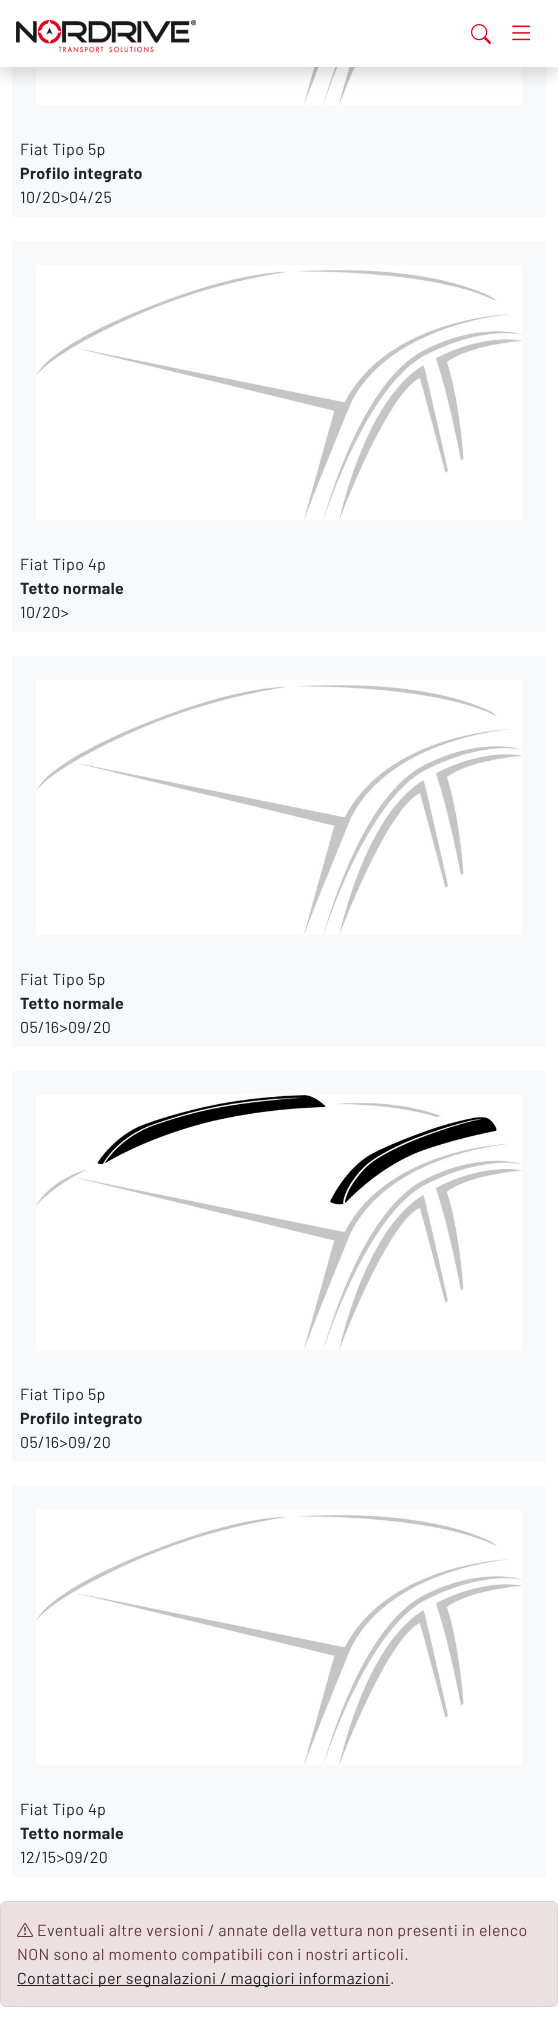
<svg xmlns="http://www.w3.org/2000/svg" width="558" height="2025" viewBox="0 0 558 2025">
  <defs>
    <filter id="blur1" x="-50%" y="-200%" width="200%" height="500%"><feGaussianBlur stdDeviation="8"/></filter>
  </defs>
  <rect width="100%" height="100%" fill="#ffffff"/>
  <rect x="12" y="67" width="534" height="150" fill="#f8f9fa"/>
  <image x="36" y="67" width="486" height="38" href="img4.png"/>
  <rect x="0" y="8" width="558" height="67" fill="#000000" fill-opacity="0.15" filter="url(#blur1)"/>
  <rect x="0" y="0" width="558" height="67" fill="#ffffff"/>
  <image x="16" y="20" width="180" height="33" href="img1.png"/>
  <image x="471" y="24" width="20" height="20" href="img2.png"/>
  <image x="512" y="25" width="19" height="16" href="img3.png"/>
  <text x="20" y="155" font-family="Barlow" font-size="16" letter-spacing="0.4" fill="#212529">Fiat Tipo 5p</text>
  <text x="20" y="179" font-family="Barlow" font-size="16" font-weight="bold" letter-spacing="0.4" fill="#212529">Profilo integrato</text>
  <text x="20" y="203" font-family="Barlow" font-size="16" letter-spacing="0.4" fill="#212529">10/20&gt;04/25</text>
  <rect x="12" y="241" width="534" height="391" fill="#f8f9fa"/>
  <image x="36" y="265" width="486" height="255" href="img5.png"/>
  <text x="20" y="570" font-family="Barlow" font-size="16" letter-spacing="0.4" fill="#212529">Fiat Tipo 4p</text>
  <text x="20" y="594" font-family="Barlow" font-size="16" font-weight="bold" letter-spacing="0.4" fill="#212529">Tetto normale</text>
  <text x="20" y="618" font-family="Barlow" font-size="16" letter-spacing="0.4" fill="#212529">10/20&gt;</text>
  <rect x="12" y="656" width="534" height="391" fill="#f8f9fa"/>
  <image x="36" y="680" width="486" height="255" href="img5.png"/>
  <text x="20" y="985" font-family="Barlow" font-size="16" letter-spacing="0.4" fill="#212529">Fiat Tipo 5p</text>
  <text x="20" y="1009" font-family="Barlow" font-size="16" font-weight="bold" letter-spacing="0.4" fill="#212529">Tetto normale</text>
  <text x="20" y="1033" font-family="Barlow" font-size="16" letter-spacing="0.4" fill="#212529">05/16&gt;09/20</text>
  <rect x="12" y="1071" width="534" height="391" fill="#f8f9fa"/>
  <image x="36" y="1095" width="486" height="255" href="img6.png"/>
  <text x="20" y="1400" font-family="Barlow" font-size="16" letter-spacing="0.4" fill="#212529">Fiat Tipo 5p</text>
  <text x="20" y="1424" font-family="Barlow" font-size="16" font-weight="bold" letter-spacing="0.4" fill="#212529">Profilo integrato</text>
  <text x="20" y="1448" font-family="Barlow" font-size="16" letter-spacing="0.4" fill="#212529">05/16&gt;09/20</text>
  <rect x="12" y="1486" width="534" height="391" fill="#f8f9fa"/>
  <image x="36" y="1510" width="486" height="255" href="img5.png"/>
  <text x="20" y="1815" font-family="Barlow" font-size="16" letter-spacing="0.4" fill="#212529">Fiat Tipo 4p</text>
  <text x="20" y="1839" font-family="Barlow" font-size="16" font-weight="bold" letter-spacing="0.4" fill="#212529">Tetto normale</text>
  <text x="20" y="1863" font-family="Barlow" font-size="16" letter-spacing="0.4" fill="#212529">12/15&gt;09/20</text>
  <rect x="0.5" y="1901.5" width="557" height="105" rx="5.5" fill="#ece0e1" stroke="#e3d1d2"/>
  <image x="17" y="1923" width="16" height="14" href="img7.png"/>
  <text x="37" y="1936" font-family="Barlow" font-size="16" letter-spacing="0.4" fill="#613c3e">Eventuali altre versioni / annate della vettura non presenti in elenco</text>
  <text x="17" y="1960" font-family="Barlow" font-size="16" letter-spacing="0.4" fill="#613c3e">NON sono al momento compatibili con i nostri articoli.</text>
  <rect x="17" y="1985" width="373" height="1" fill="#212529"/>
  <text x="17" y="1984" font-family="Barlow" font-size="16" letter-spacing="0.4" fill="#212529">Contattaci per segnalazioni / maggiori informazioni</text>
  <text x="390" y="1984" font-family="Barlow" font-size="16" letter-spacing="0.4" fill="#613c3e">.</text>
</svg>
